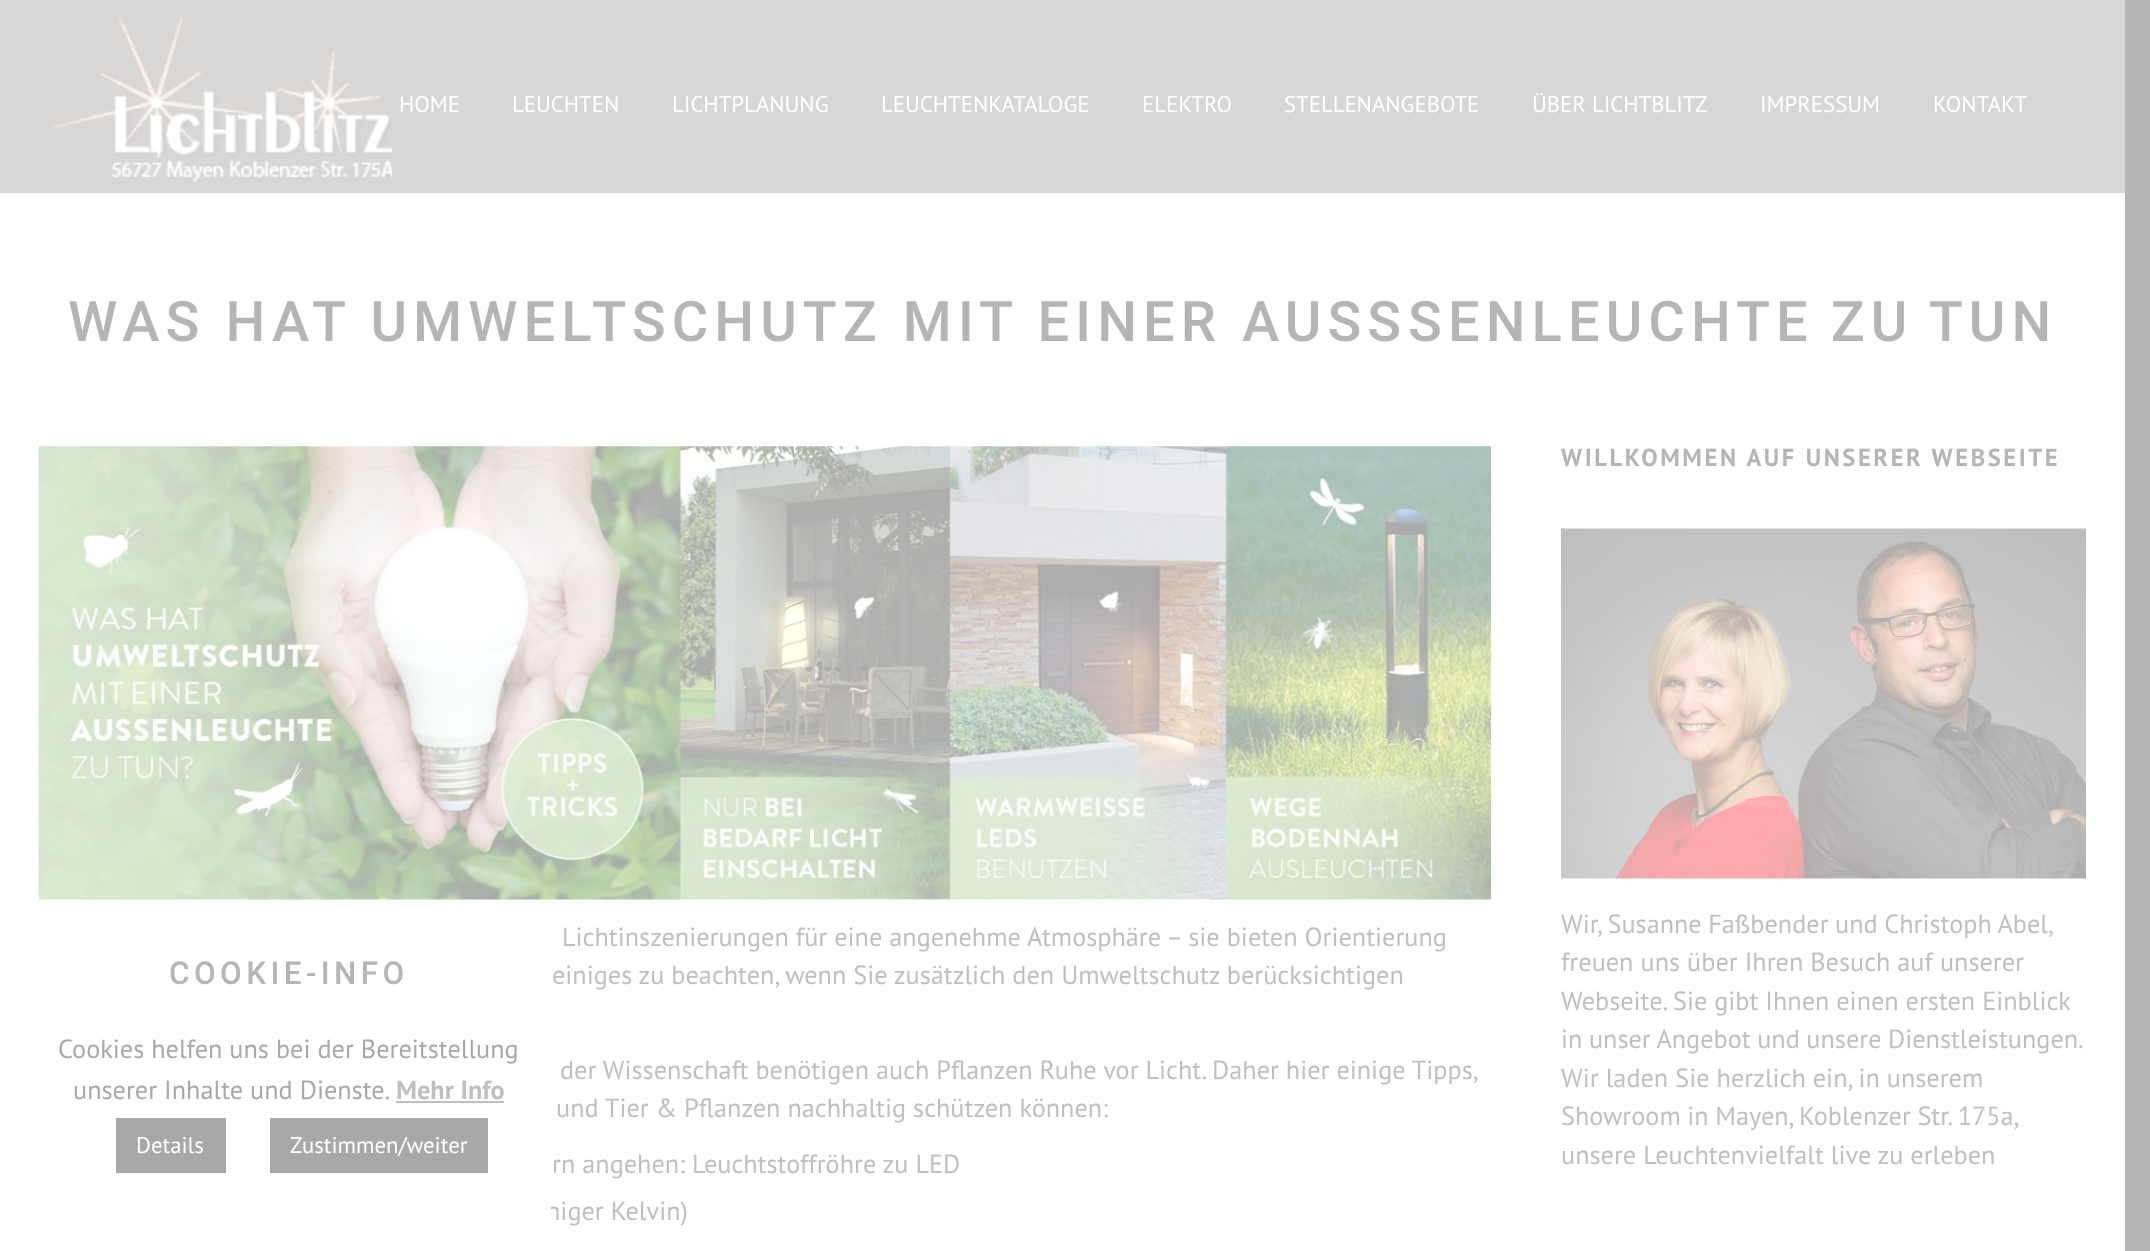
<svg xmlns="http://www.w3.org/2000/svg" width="2150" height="1251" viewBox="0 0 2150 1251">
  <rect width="100%" height="100%" fill="#ffffff"/>
  <rect x="0" y="0" width="2125" height="193" fill="#d9d7d6"/>
  <image x="52" y="17" width="340" height="166" href="img1.png"/>
  <text x="399" y="112" font-family="PT Sans" font-size="22.75" fill="#ffffff">HOME</text>
  <text x="512" y="112" font-family="PT Sans" font-size="22.75" fill="#ffffff">LEUCHTEN</text>
  <text x="672" y="112" font-family="PT Sans" font-size="22.75" fill="#ffffff">LICHTPLANUNG</text>
  <text x="881" y="112" font-family="PT Sans" font-size="22.75" fill="#ffffff">LEUCHTENKATALOGE</text>
  <text x="1142" y="112" font-family="PT Sans" font-size="22.75" fill="#ffffff">ELEKTRO</text>
  <text x="1284" y="112" font-family="PT Sans" font-size="22.75" fill="#ffffff">STELLENANGEBOTE</text>
  <text x="1532" y="112" font-family="PT Sans" font-size="22.75" fill="#ffffff">ÜBER LICHTBLITZ</text>
  <text x="1760" y="112" font-family="PT Sans" font-size="22.75" fill="#ffffff">IMPRESSUM</text>
  <text x="1933" y="112" font-family="PT Sans" font-size="22.75" fill="#ffffff">KONTAKT</text>
  <rect x="2125" y="0" width="25" height="1251" fill="#b4b5b6"/>
  <text x="68" y="341" font-family="Roboto" font-size="56" font-weight="500" letter-spacing="6.1" fill="#b4b5b6">WAS HAT UMWELTSCHUTZ MIT EINER AUSS</text>
  <text x="1408" y="341" word-spacing="-3" font-family="Roboto" font-size="56" font-weight="500" letter-spacing="6.1" fill="#b4b5b6">SENLEUCHTE ZU TUN</text>
  <image x="38" y="446" width="1453" height="454" href="img2.png"/>
  <text x="562" y="946" font-family="PT Sans" font-size="26.25" fill="#bfbfc1">Lichtinszenierungen für eine angenehme Atmosphäre – sie bieten Orientierung</text>
  <text x="552" y="984" font-family="PT Sans" font-size="26.25" fill="#bfbfc1">einiges zu beachten, wenn Sie zusätzlich den Umweltschutz berücksichtigen</text>
  <text x="560" y="1079" word-spacing="-0.1" font-family="PT Sans" font-size="26.25" fill="#bfbfc1">der Wissenschaft benötigen auch Pflanzen Ruhe vor Licht. Daher hier einige Tipps,</text>
  <text x="556" y="1117" font-family="PT Sans" font-size="26.25" fill="#bfbfc1">und Tier &amp; Pflanzen nachhaltig schützen können:</text>
  <text x="552" y="1173" font-family="PT Sans" font-size="26.25" fill="#bfbfc1">rn angehen: Leuchtstoffröhre zu LED</text>
  <text x="546" y="1220" font-family="PT Sans" font-size="26.25" fill="#bfbfc1">niger Kelvin)</text>
  <text x="1561" y="466" font-family="PT Sans" font-size="24.5" font-weight="bold" letter-spacing="2.6" fill="#b4b5b6">WILLKOMMEN AUF UNSERER WEBSEITE</text>
  <image x="1561" y="528" width="525" height="351" href="img3.png"/>
  <text x="1561" y="933" word-spacing="-0.5" font-family="PT Sans" font-size="26.25" fill="#bfbfc1">Wir, Susanne Faßbender und Christoph Abel,</text>
  <text x="1561" y="971" font-family="PT Sans" font-size="26.25" fill="#bfbfc1">freuen uns über Ihren Besuch auf unserer</text>
  <text x="1561" y="1010" word-spacing="-0.1" font-family="PT Sans" font-size="26.25" fill="#bfbfc1">Webseite. Sie gibt Ihnen einen ersten Einblick</text>
  <text x="1561" y="1048" word-spacing="-0.5" font-family="PT Sans" font-size="26.25" fill="#bfbfc1">in unser Angebot und unsere Dienstleistungen.</text>
  <text x="1561" y="1087" font-family="PT Sans" font-size="26.25" fill="#bfbfc1">Wir laden Sie herzlich ein, in unserem</text>
  <text x="1561" y="1125" word-spacing="-0.5" font-family="PT Sans" font-size="26.25" fill="#bfbfc1">Showroom in Mayen, Koblenzer Str. 175a,</text>
  <text x="1561" y="1164" font-family="PT Sans" font-size="26.25" fill="#bfbfc1">unsere Leuchtenvielfalt live zu erleben</text>
  <rect x="548" y="1206" width="3" height="14" fill="#ffffff"/>
  <text x="169" y="984" font-family="Roboto" font-size="31.5" font-weight="500" letter-spacing="4.4" fill="#b4b5b6">COOKIE-INFO</text>
  <text x="58" y="1058" font-family="PT Sans" font-size="26.25" fill="#a8a8a8">Cookies helfen uns bei der Bereitstellung</text>
  <text x="73" y="1099" font-family="PT Sans" font-size="26.25" fill="#a8a8a8">unserer Inhalte und Dienste.</text>
  <text x="396" y="1099" font-family="PT Sans" font-size="26.25" font-weight="bold" fill="#bfbfc1">Mehr Info</text>
  <rect x="396" y="1101" width="108" height="2" fill="#bfbfbf"/>
  <rect x="116" y="1118" width="110" height="55" fill="#a8a8a8"/>
  <text x="136" y="1153" font-family="PT Sans" font-size="22.75" fill="#ffffff">Details</text>
  <rect x="270" y="1118" width="218" height="55" fill="#a8a8a8"/>
  <text x="290" y="1153" font-family="PT Sans" font-size="22.75" fill="#ffffff">Zustimmen/weiter</text>
</svg>
